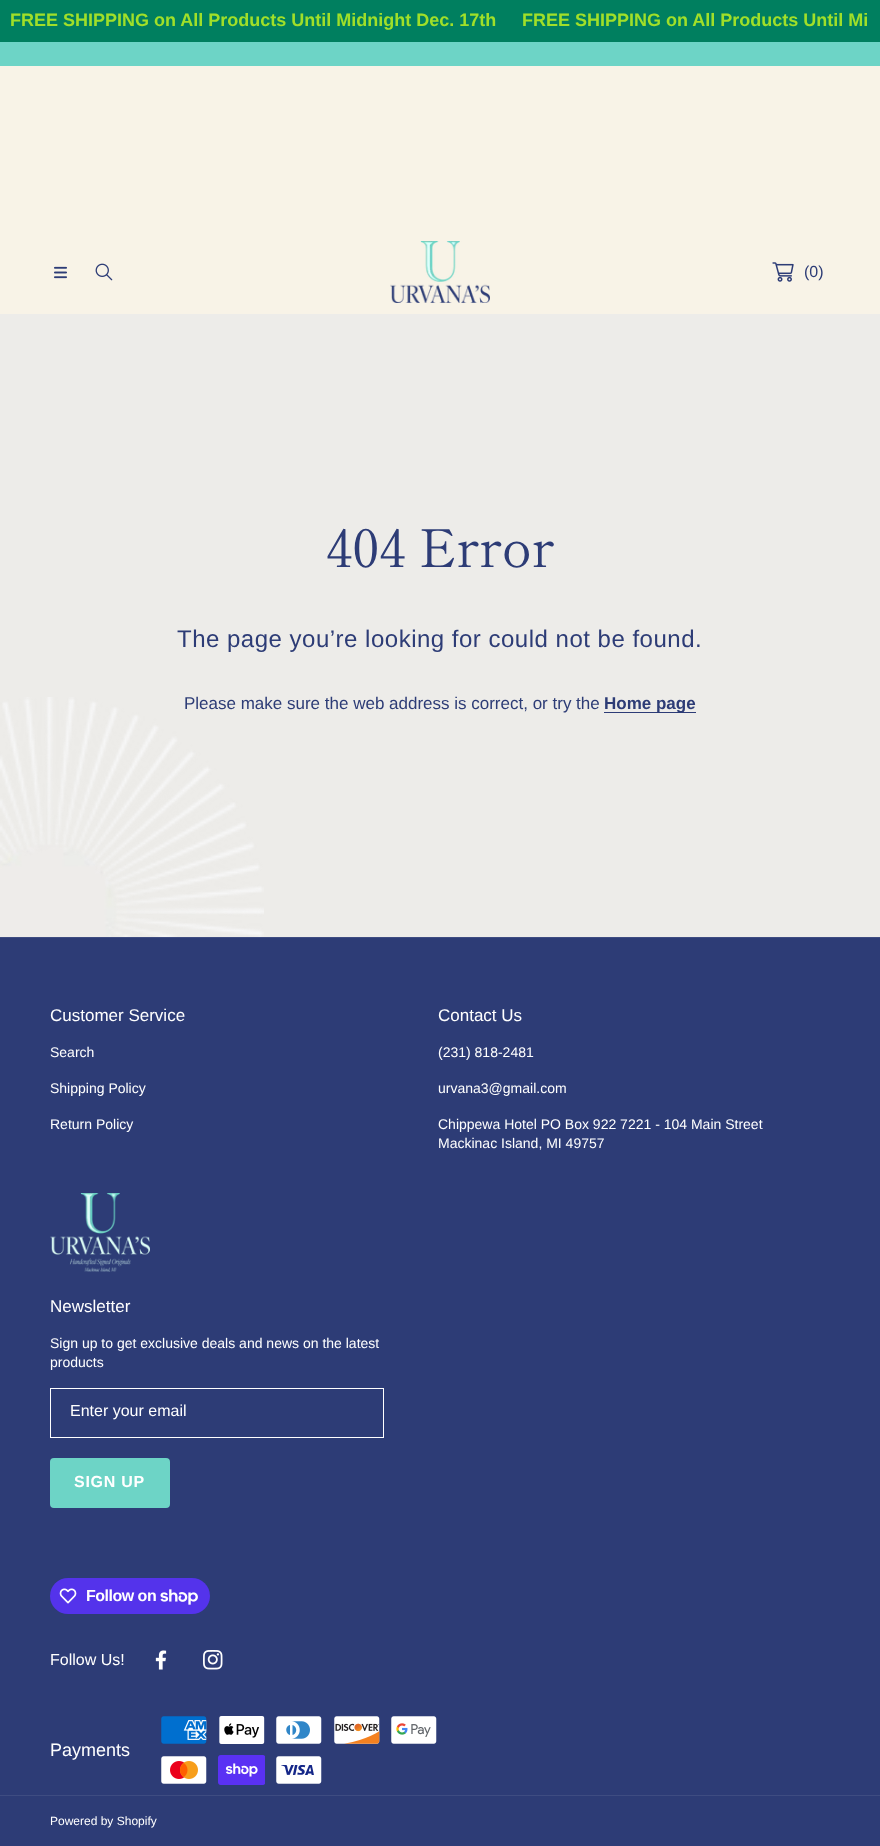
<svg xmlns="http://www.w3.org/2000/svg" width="880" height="1846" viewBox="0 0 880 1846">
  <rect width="100%" height="100%" fill="#f8f3e7"/>
  <rect x="0" y="0" width="880" height="42" fill="#007f5f"/>
  <text x="10" y="26" font-family="Liberation Sans" font-size="18" font-weight="bold" fill="#a0df29">FREE SHIPPING on All Products Until Midnight Dec. 17th</text>
  <text x="522" y="26" font-family="Liberation Sans" font-size="18" font-weight="bold" fill="#a0df29">FREE SHIPPING on All Products Until Mi</text>
  <rect x="0" y="42" width="880" height="24" fill="#6dd4c6"/>
  <image x="54" y="266" width="13" height="13" href="img1.png"/>
  <image x="95" y="263" width="18" height="18" href="img2.png"/>
  <image x="390" y="241" width="100" height="62" href="img3.png"/>
  <image x="772" y="262" width="22" height="20" href="img4.png"/>
  <text x="804" y="277" font-family="Liberation Sans" font-size="16" fill="#2d3c76">(0)</text>
  <rect x="0" y="314" width="880" height="623" fill="#edece9"/>
  <image x="0" y="697" width="264" height="240" href="img5.png"/>
  <text x="326" y="567" font-family="Shippori Mincho" font-size="52" fill="#2d3c76">404 Error</text>
  <text x="177" y="647" font-family="Liberation Sans" font-size="24" letter-spacing="0.5" fill="#2d3c76">The page you’re looking for could not be found.</text>
  <text x="184" y="709" font-family="Liberation Sans" font-size="17" fill="#2d3c76">Please make sure the web address is correct, or try the</text>
  <rect x="604" y="712" width="92" height="1" fill="#2d3c76"/>
  <text x="604" y="709" font-family="Liberation Sans" font-size="17" font-weight="bold" fill="#2d3c76">Home page</text>
  <rect x="0" y="938" width="880" height="908" fill="#2d3c76"/>
  <rect x="0" y="937" width="880" height="1" fill="#3e4c81"/>
  <text x="50" y="1021" font-family="Liberation Sans" font-size="17" fill="#ffffff">Customer Service</text>
  <text x="50" y="1057" font-family="Liberation Sans" font-size="14" fill="#ffffff">Search</text>
  <text x="50" y="1093" font-family="Liberation Sans" font-size="14" fill="#ffffff">Shipping Policy</text>
  <text x="50" y="1129" font-family="Liberation Sans" font-size="14" fill="#ffffff">Return Policy</text>
  <text x="438" y="1021" font-family="Liberation Sans" font-size="17" fill="#ffffff">Contact Us</text>
  <text x="438" y="1057" font-family="Liberation Sans" font-size="14" fill="#ffffff">(231) 818-2481</text>
  <text x="438" y="1093" font-family="Liberation Sans" font-size="14" fill="#ffffff">urvana3@gmail.com</text>
  <text x="438" y="1129" font-family="Liberation Sans" font-size="14" fill="#ffffff">Chippewa Hotel PO Box 922 7221 - 104 Main Street</text>
  <text x="438" y="1148" font-family="Liberation Sans" font-size="14" fill="#ffffff">Mackinac Island, MI 49757</text>
  <image x="50" y="1193" width="100" height="79" href="img6.png"/>
  <text x="50" y="1312" font-family="Liberation Sans" font-size="17" fill="#ffffff">Newsletter</text>
  <text x="50" y="1348" font-family="Liberation Sans" font-size="14" fill="#ffffff">Sign up to get exclusive deals and news on the latest</text>
  <text x="50" y="1367" font-family="Liberation Sans" font-size="14" fill="#ffffff">products</text>
  <rect x="50.5" y="1388.5" width="333" height="49" fill="none" stroke="#ffffff"/>
  <text x="70" y="1416" font-family="Liberation Sans" font-size="16" fill="#ffffff">Enter your email</text>
  <rect x="51" y="1459" width="118" height="48" rx="3" fill="#6dd4c6" stroke="#6dd4c6" stroke-width="2"/>
  <text x="74" y="1487" font-family="Liberation Sans" font-size="16" font-weight="bold" letter-spacing="0.75" fill="#ffffff">SIGN UP</text>
  <rect x="50" y="1578" width="160" height="36" rx="18" fill="#5433eb"/>
  <image x="59" y="1588" width="18" height="16" href="img7.png"/>
  <text x="86" y="1601" font-family="Liberation Sans" font-size="16" font-weight="bold" letter-spacing="-0.5" fill="#ffffff">Follow on</text>
  <image x="160" y="1589" width="38" height="16" href="img8.png"/>
  <text x="50" y="1665" font-family="Liberation Sans" font-size="16" fill="#ffffff">Follow Us!</text>
  <image x="155" y="1650" width="12" height="20" href="img9.png"/>
  <image x="203" y="1650" width="20" height="20" href="img10.png"/>
  <text x="50" y="1756" font-family="Liberation Sans" font-size="18" fill="#ffffff">Payments</text>
  <image x="161" y="1716" width="46" height="28" href="img11.png"/>
  <image x="219" y="1716" width="46" height="28" href="img12.png"/>
  <image x="276" y="1716" width="46" height="28" href="img13.png"/>
  <image x="334" y="1716" width="46" height="28" href="img14.png"/>
  <image x="391" y="1716" width="46" height="28" href="img15.png"/>
  <image x="161" y="1756" width="46" height="28" href="img16.png"/>
  <image x="218" y="1755" width="47" height="30" href="img17.png"/>
  <image x="276" y="1756" width="46" height="28" href="img18.png"/>
  <rect x="0" y="1795" width="880" height="1" fill="#3e4c81"/>
  <text x="50" y="1825" font-family="Liberation Sans" font-size="12" fill="#ffffff">Powered by Shopify</text>
</svg>
